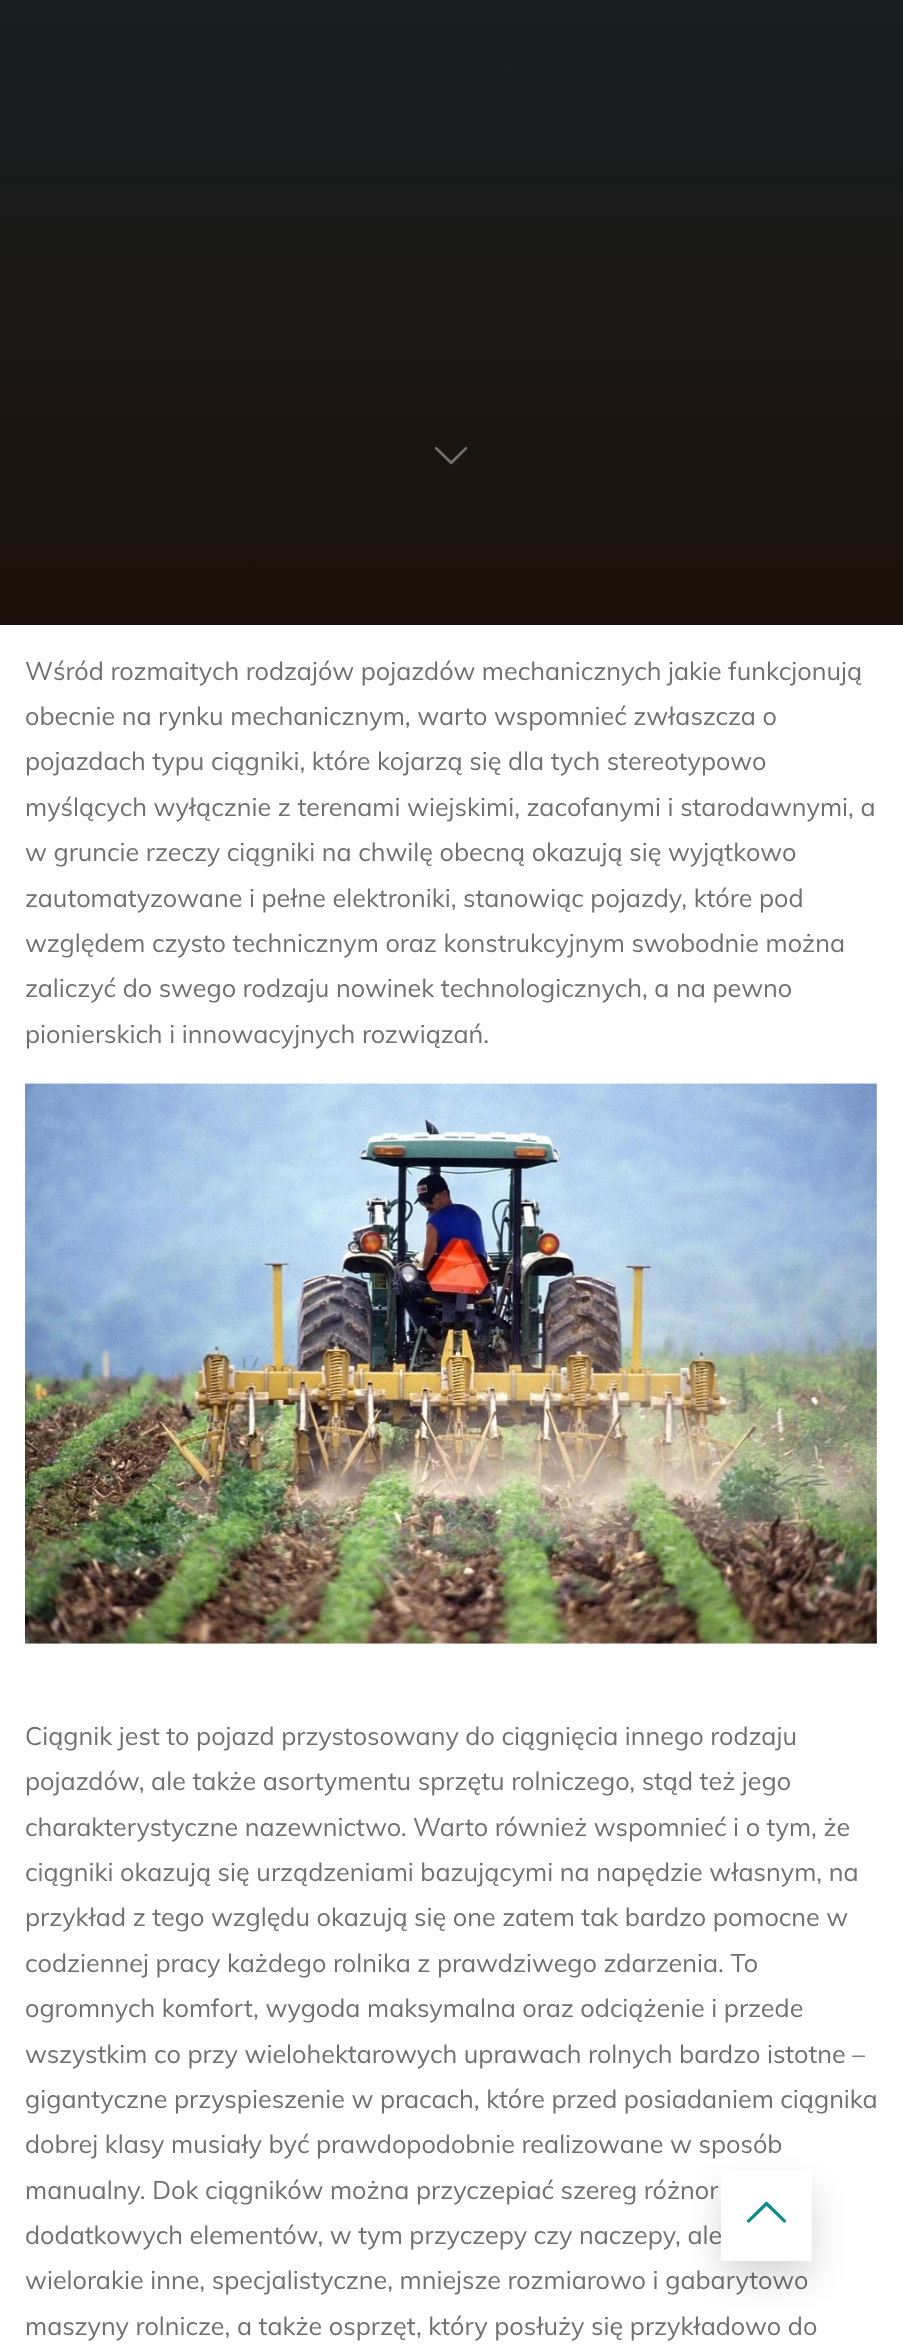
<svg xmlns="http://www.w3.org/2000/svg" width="903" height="2352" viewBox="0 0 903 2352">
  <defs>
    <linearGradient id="g1" gradientUnits="userSpaceOnUse" x1="451" y1="-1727" x2="452" y2="625"><stop offset="0" stop-color="#08415c"/><stop offset="1" stop-color="#1c110a"/></linearGradient>
    <filter id="blur1" x="-50%" y="-200%" width="200%" height="500%"><feGaussianBlur stdDeviation="17.5"/></filter>
  </defs>
  <rect width="100%" height="100%" fill="#ffffff"/>
  <rect x="0" y="0" width="903" height="625" fill="url(#g1)"/>
  <image x="434" y="447" width="34" height="18" href="img1.png"/>
  <text x="25" y="680" font-family="Muli" font-size="25.2" fill="#707070">Wśród rozmaitych rodzajów pojazdów mechanicznych jakie funkcjonują</text>
  <text x="25" y="725" font-family="Muli" font-size="25.2" fill="#707070">obecnie na rynku mechanicznym, warto wspomnieć zwłaszcza o</text>
  <text x="25" y="770" font-family="Muli" font-size="25.2" fill="#707070">pojazdach typu ciągniki, które kojarzą się dla tych stereotypowo</text>
  <text x="25" y="816" font-family="Muli" font-size="25.2" fill="#707070">myślących wyłącznie z terenami wiejskimi, zacofanymi i starodawnymi, a</text>
  <text x="25" y="861" font-family="Muli" font-size="25.2" fill="#707070">w gruncie rzeczy ciągniki na chwilę obecną okazują się wyjątkowo</text>
  <text x="25" y="907" font-family="Muli" font-size="25.2" fill="#707070">zautomatyzowane i pełne elektroniki, stanowiąc pojazdy, które pod</text>
  <text x="25" y="952" font-family="Muli" font-size="25.2" fill="#707070">względem czysto technicznym oraz konstrukcyjnym swobodnie można</text>
  <text x="25" y="997" font-family="Muli" font-size="25.2" fill="#707070">zaliczyć do swego rodzaju nowinek technologicznych, a na pewno</text>
  <text x="25" y="1043" font-family="Muli" font-size="25.2" fill="#707070">pionierskich i innowacyjnych rozwiązań.</text>
  <image x="25" y="1083" width="852" height="561" href="img2.png"/>
  <text x="25" y="1745" font-family="Muli" font-size="25.2" fill="#707070">Ciągnik jest to pojazd przystosowany do ciągnięcia innego rodzaju</text>
  <text x="25" y="1790" font-family="Muli" font-size="25.2" fill="#707070">pojazdów, ale także asortymentu sprzętu rolniczego, stąd też jego</text>
  <text x="25" y="1836" font-family="Muli" font-size="25.2" fill="#707070">charakterystyczne nazewnictwo. Warto również wspomnieć i o tym, że</text>
  <text x="25" y="1881" font-family="Muli" font-size="25.2" fill="#707070">ciągniki okazują się urządzeniami bazującymi na napędzie własnym, na</text>
  <text x="25" y="1926" font-family="Muli" font-size="25.2" fill="#707070">przykład z tego względu okazują się one zatem tak bardzo pomocne w</text>
  <text x="25" y="1972" font-family="Muli" font-size="25.2" fill="#707070">codziennej pracy każdego rolnika z prawdziwego zdarzenia. To</text>
  <text x="25" y="2017" font-family="Muli" font-size="25.2" fill="#707070">ogromnych komfort, wygoda maksymalna oraz odciążenie i przede</text>
  <text x="25" y="2063" font-family="Muli" font-size="25.2" fill="#707070">wszystkim co przy wielohektarowych uprawach rolnych bardzo istotne –</text>
  <text x="25" y="2108" font-family="Muli" font-size="25.2" fill="#707070">gigantyczne przyspieszenie w pracach, które przed posiadaniem ciągnika</text>
  <text x="25" y="2153" font-family="Muli" font-size="25.2" fill="#707070">dobrej klasy musiały być prawdopodobnie realizowane w sposób</text>
  <text x="25" y="2199" font-family="Muli" font-size="25.2" fill="#707070">manualny. Dok ciągników można przyczepiać szereg różnor</text>
  <text x="25" y="2244" font-family="Muli" font-size="25.2" fill="#707070">dodatkowych elementów, w tym przyczepy czy naczepy, ale</text>
  <text x="25" y="2289" font-family="Muli" font-size="25.2" fill="#707070">wielorakie inne, specjalistyczne, mniejsze rozmiarowo i gabarytowo</text>
  <text x="25" y="2335" font-family="Muli" font-size="25.2" fill="#707070">maszyny rolnicze, a także osprzęt, który posłuży się przykładowo do</text>
  <rect x="721" y="2188" width="91" height="91" fill="#000000" fill-opacity="0.15" filter="url(#blur1)"/>
  <rect x="721" y="2170" width="91" height="91" fill="#ffffff"/>
  <image x="747" y="2201" width="39" height="22" href="img3.png"/>
</svg>
